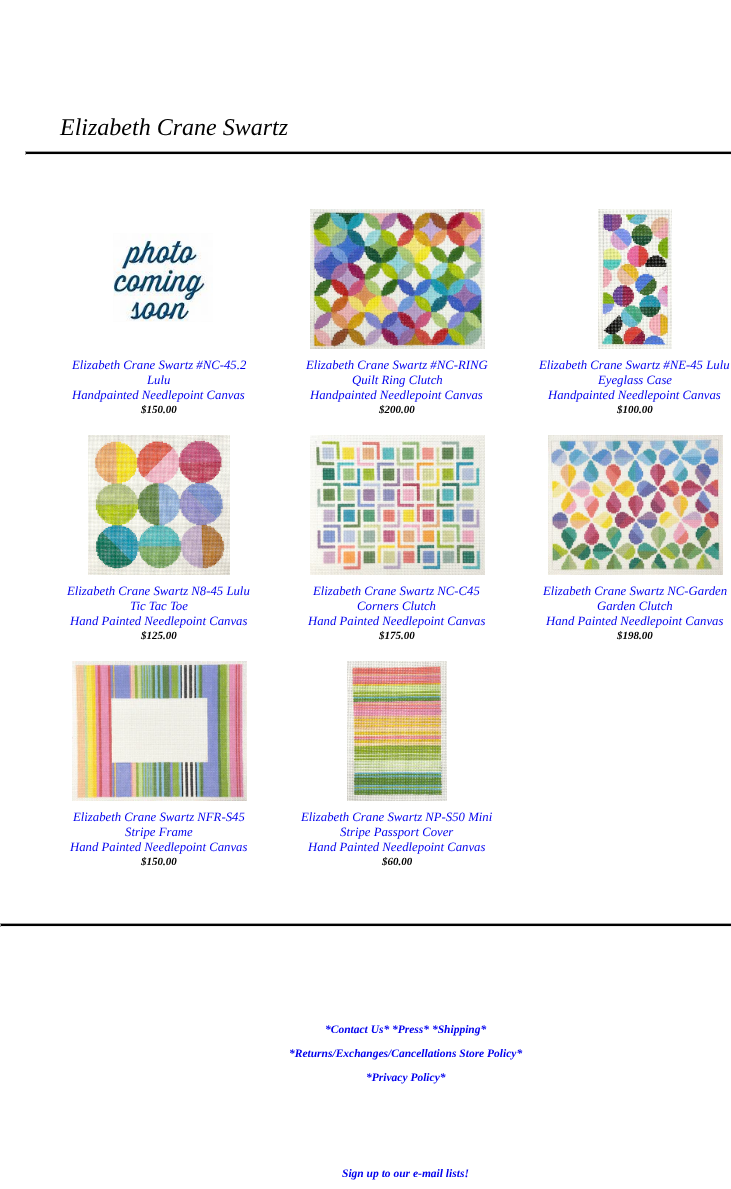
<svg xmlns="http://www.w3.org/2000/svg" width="731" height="1189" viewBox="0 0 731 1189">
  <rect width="100%" height="100%" fill="#ffffff"/>
  <text x="60" y="135" font-family="Liberation Serif" font-size="24" font-style="italic" fill="#000000">Elizabeth Crane Swartz</text>
  <rect x="25" y="152" width="706" height="2" fill="#000000"/>
  <rect x="25" y="151" width="706" height="1" fill="#9f9f9f"/>
  <rect x="25" y="154" width="706" height="1" fill="#eeeeee"/>
  <rect x="25" y="151" width="1" height="4" fill="#9f9f9f"/>
  <image x="113" y="233" width="100" height="89" href="img1.png"/>
  <text x="72" y="369" font-family="Liberation Serif" font-size="12.75" font-style="italic" fill="#0000ee">Elizabeth Crane Swartz #NC-45.2</text>
  <text x="147" y="384" font-family="Liberation Serif" font-size="12.75" font-style="italic" fill="#0000ee">Lulu</text>
  <text x="72" y="399" font-family="Liberation Serif" font-size="12.75" font-style="italic" fill="#0000ee">Handpainted Needlepoint Canvas</text>
  <text x="141" y="413" font-family="Liberation Serif" font-size="11" font-weight="bold" font-style="italic" fill="#000000">$150.00</text>
  <image x="310" y="209" width="175" height="140" href="img2.png"/>
  <text x="306" y="369" font-family="Liberation Serif" font-size="12.75" font-style="italic" fill="#0000ee">Elizabeth Crane Swartz #NC-RING</text>
  <text x="352" y="384" font-family="Liberation Serif" font-size="12.75" font-style="italic" fill="#0000ee">Quilt Ring Clutch</text>
  <text x="310" y="399" font-family="Liberation Serif" font-size="12.75" font-style="italic" fill="#0000ee">Handpainted Needlepoint Canvas</text>
  <text x="379" y="413" font-family="Liberation Serif" font-size="11" font-weight="bold" font-style="italic" fill="#000000">$200.00</text>
  <image x="598" y="209" width="74" height="140" href="img3.png"/>
  <text x="539" y="369" font-family="Liberation Serif" font-size="12.75" font-style="italic" fill="#0000ee">Elizabeth Crane Swartz #NE-45 Lulu</text>
  <text x="598" y="384" font-family="Liberation Serif" font-size="12.75" font-style="italic" fill="#0000ee">Eyeglass Case</text>
  <text x="548" y="399" font-family="Liberation Serif" font-size="12.75" font-style="italic" fill="#0000ee">Handpainted Needlepoint Canvas</text>
  <text x="617" y="413" font-family="Liberation Serif" font-size="11" font-weight="bold" font-style="italic" fill="#000000">$100.00</text>
  <image x="88" y="435" width="142" height="140" href="img4.png"/>
  <text x="67" y="595" font-family="Liberation Serif" font-size="12.75" font-style="italic" fill="#0000ee">Elizabeth Crane Swartz N8-45 Lulu</text>
  <text x="130" y="610" font-family="Liberation Serif" font-size="12.75" font-style="italic" fill="#0000ee">Tic Tac Toe</text>
  <text x="70" y="625" font-family="Liberation Serif" font-size="12.75" font-style="italic" fill="#0000ee">Hand Painted Needlepoint Canvas</text>
  <text x="141" y="639" font-family="Liberation Serif" font-size="11" font-weight="bold" font-style="italic" fill="#000000">$125.00</text>
  <image x="310" y="435" width="175" height="140" href="img5.png"/>
  <text x="313" y="595" font-family="Liberation Serif" font-size="12.75" font-style="italic" fill="#0000ee">Elizabeth Crane Swartz NC-C45</text>
  <text x="357" y="610" font-family="Liberation Serif" font-size="12.75" font-style="italic" fill="#0000ee">Corners Clutch</text>
  <text x="308" y="625" font-family="Liberation Serif" font-size="12.75" font-style="italic" fill="#0000ee">Hand Painted Needlepoint Canvas</text>
  <text x="379" y="639" font-family="Liberation Serif" font-size="11" font-weight="bold" font-style="italic" fill="#000000">$175.00</text>
  <image x="548" y="435" width="175" height="140" href="img6.png"/>
  <text x="543" y="595" font-family="Liberation Serif" font-size="12.75" font-style="italic" fill="#0000ee">Elizabeth Crane Swartz NC-Garden</text>
  <text x="597" y="610" font-family="Liberation Serif" font-size="12.75" font-style="italic" fill="#0000ee">Garden Clutch</text>
  <text x="546" y="625" font-family="Liberation Serif" font-size="12.75" font-style="italic" fill="#0000ee">Hand Painted Needlepoint Canvas</text>
  <text x="617" y="639" font-family="Liberation Serif" font-size="11" font-weight="bold" font-style="italic" fill="#000000">$198.00</text>
  <image x="72" y="661" width="175" height="140" href="img7.png"/>
  <text x="73" y="821" font-family="Liberation Serif" font-size="12.75" font-style="italic" fill="#0000ee">Elizabeth Crane Swartz NFR-S45</text>
  <text x="125" y="836" font-family="Liberation Serif" font-size="12.75" font-style="italic" fill="#0000ee">Stripe Frame</text>
  <text x="70" y="851" font-family="Liberation Serif" font-size="12.75" font-style="italic" fill="#0000ee">Hand Painted Needlepoint Canvas</text>
  <text x="141" y="865" font-family="Liberation Serif" font-size="11" font-weight="bold" font-style="italic" fill="#000000">$150.00</text>
  <image x="347" y="661" width="100" height="140" href="img8.png"/>
  <text x="301" y="821" font-family="Liberation Serif" font-size="12.75" font-style="italic" fill="#0000ee">Elizabeth Crane Swartz NP-S50 Mini</text>
  <text x="340" y="836" font-family="Liberation Serif" font-size="12.75" font-style="italic" fill="#0000ee">Stripe Passport Cover</text>
  <text x="308" y="851" font-family="Liberation Serif" font-size="12.75" font-style="italic" fill="#0000ee">Hand Painted Needlepoint Canvas</text>
  <text x="382" y="865" font-family="Liberation Serif" font-size="11" font-weight="bold" font-style="italic" fill="#000000">$60.00</text>
  <rect x="0" y="924" width="731" height="2" fill="#000000"/>
  <rect x="0" y="923" width="731" height="1" fill="#9f9f9f"/>
  <rect x="0" y="926" width="731" height="1" fill="#eeeeee"/>
  <rect x="0" y="923" width="1" height="4" fill="#9f9f9f"/>
  <text x="325" y="1033" font-family="Liberation Serif" font-size="11.5" font-weight="bold" font-style="italic" fill="#0000ee">*Contact Us*</text>
  <text x="392" y="1033" font-family="Liberation Serif" font-size="11.5" font-weight="bold" font-style="italic" fill="#0000ee">*Press* *Shipping*</text>
  <text x="289" y="1057" font-family="Liberation Serif" font-size="11.5" font-weight="bold" font-style="italic" fill="#0000ee">*Returns/Exchanges/Cancellations Store Policy*</text>
  <text x="366" y="1081" font-family="Liberation Serif" font-size="11.5" font-weight="bold" font-style="italic" fill="#0000ee">*Privacy Policy*</text>
  <text x="342" y="1177" font-family="Liberation Serif" font-size="11.5" font-weight="bold" font-style="italic" fill="#0000ee">Sign up to our e-mail lists!</text>
</svg>
